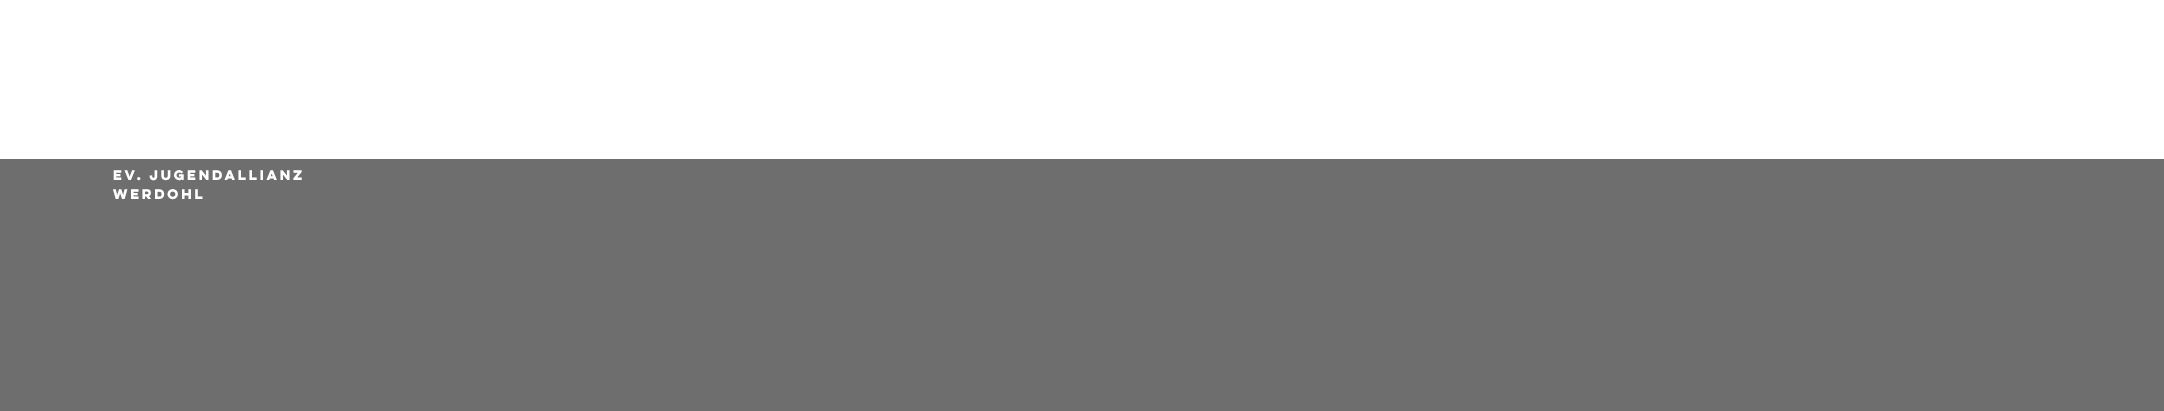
<svg xmlns="http://www.w3.org/2000/svg" width="2164" height="411" viewBox="0 0 2164 411">
  <rect width="100%" height="100%" fill="#ffffff"/>
  <rect x="0" y="159" width="2164" height="252" fill="#6e6e6e"/>
  <text x="113" y="180" font-family="'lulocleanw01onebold'" font-size="12.5" font-weight="bold" fill="#ffffff">Ev. Jugendallianz</text>
  <text x="113" y="199" font-family="'lulocleanw01onebold'" font-size="12.5" font-weight="bold" fill="#ffffff">Werdohl</text>
</svg>
